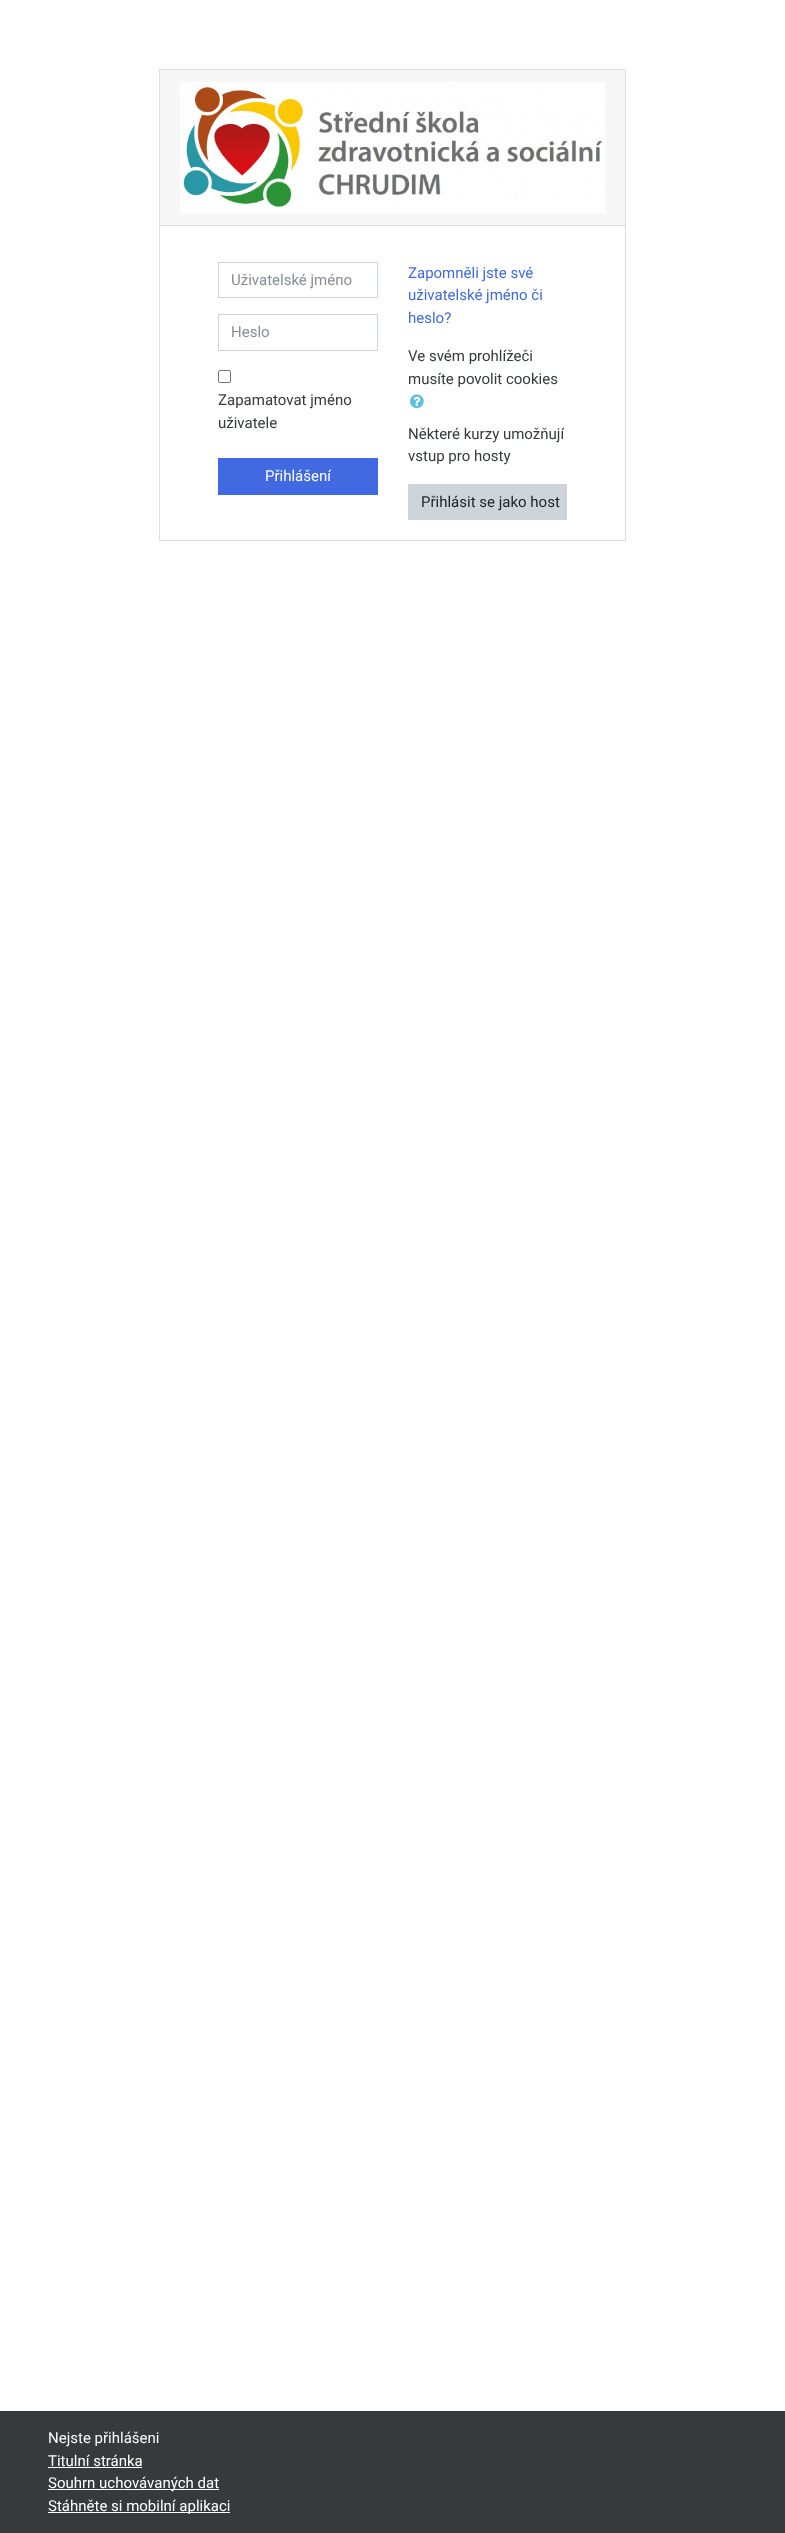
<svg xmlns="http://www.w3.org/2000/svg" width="785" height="2533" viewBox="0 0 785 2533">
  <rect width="100%" height="100%" fill="#ffffff"/>
  <rect x="159.5" y="69.5" width="466" height="471" fill="none" stroke="#dfdfdf"/>
  <rect x="160" y="70" width="465" height="155" fill="#f7f7f7"/>
  <rect x="160" y="225" width="465" height="1" fill="#d8d8d8"/>
  <image x="180" y="82" width="425" height="131" href="img1.png"/>
  <rect x="218.5" y="262.5" width="159" height="35" fill="none" stroke="#ced4da"/>
  <text x="231" y="285" font-family="Roboto" font-size="15" fill="#868e96">Uživatelské jméno</text>
  <rect x="218.5" y="314.5" width="159" height="36" fill="none" stroke="#ced4da"/>
  <text x="231" y="337" font-family="Roboto" font-size="15" fill="#868e96">Heslo</text>
  <rect x="218.5" y="370.5" width="12" height="12" rx="1.5" fill="none" stroke="#767676"/>
  <text x="218" y="405" font-family="Roboto" font-size="15" fill="#373a3c">Zapamatovat jméno</text>
  <text x="218" y="428" font-family="Roboto" font-size="15" fill="#373a3c">uživatele</text>
  <rect x="218" y="458" width="160" height="37" fill="#4169e1"/>
  <text x="265" y="481" font-family="Roboto" font-size="15" fill="#ffffff">Přihlášení</text>
  <text x="408" y="278" font-family="Roboto" font-size="15" fill="#4169e1">Zapomněli jste své</text>
  <text x="408" y="300" font-family="Roboto" font-size="15" fill="#4169e1">uživatelské jméno či</text>
  <text x="408" y="323" font-family="Roboto" font-size="15" fill="#4169e1">heslo?</text>
  <text x="408" y="361" font-family="Roboto" font-size="15" fill="#373a3c">Ve svém prohlížeči</text>
  <text x="408" y="384" font-family="Roboto" font-size="15" fill="#373a3c">musíte povolit cookies</text>
  <image x="410" y="394" width="14" height="15" href="img2.png"/>
  <text x="408" y="439" font-family="Roboto" font-size="15" fill="#373a3c">Některé kurzy umožňují</text>
  <text x="408" y="461" font-family="Roboto" font-size="15" fill="#373a3c">vstup pro hosty</text>
  <rect x="408" y="484" width="159" height="36" fill="#ced4da"/>
  <text x="421" y="507" font-family="Roboto" font-size="15" fill="#212529">Přihlásit se jako host</text>
  <rect x="0" y="2411" width="785" height="122" fill="#373a3c"/>
  <text x="48" y="2443" font-family="Roboto" font-size="15" fill="#f8f9fa">Nejste přihlášeni</text>
  <text x="48" y="2466" font-family="Roboto" font-size="15" fill="#ffffff">Titulní stránka</text>
  <rect x="48" y="2467" width="94" height="1" fill="#ffffff"/>
  <rect x="48" y="2489" width="171" height="1" fill="#ffffff"/>
  <text x="48" y="2488" font-family="Roboto" font-size="15" fill="#ffffff">Souhrn uchovávaných dat</text>
  <rect x="48" y="2512" width="182" height="1" fill="#ffffff"/>
  <text x="48" y="2511" font-family="Roboto" font-size="15" fill="#ffffff">Stáhněte si mobilní aplikaci</text>
</svg>
